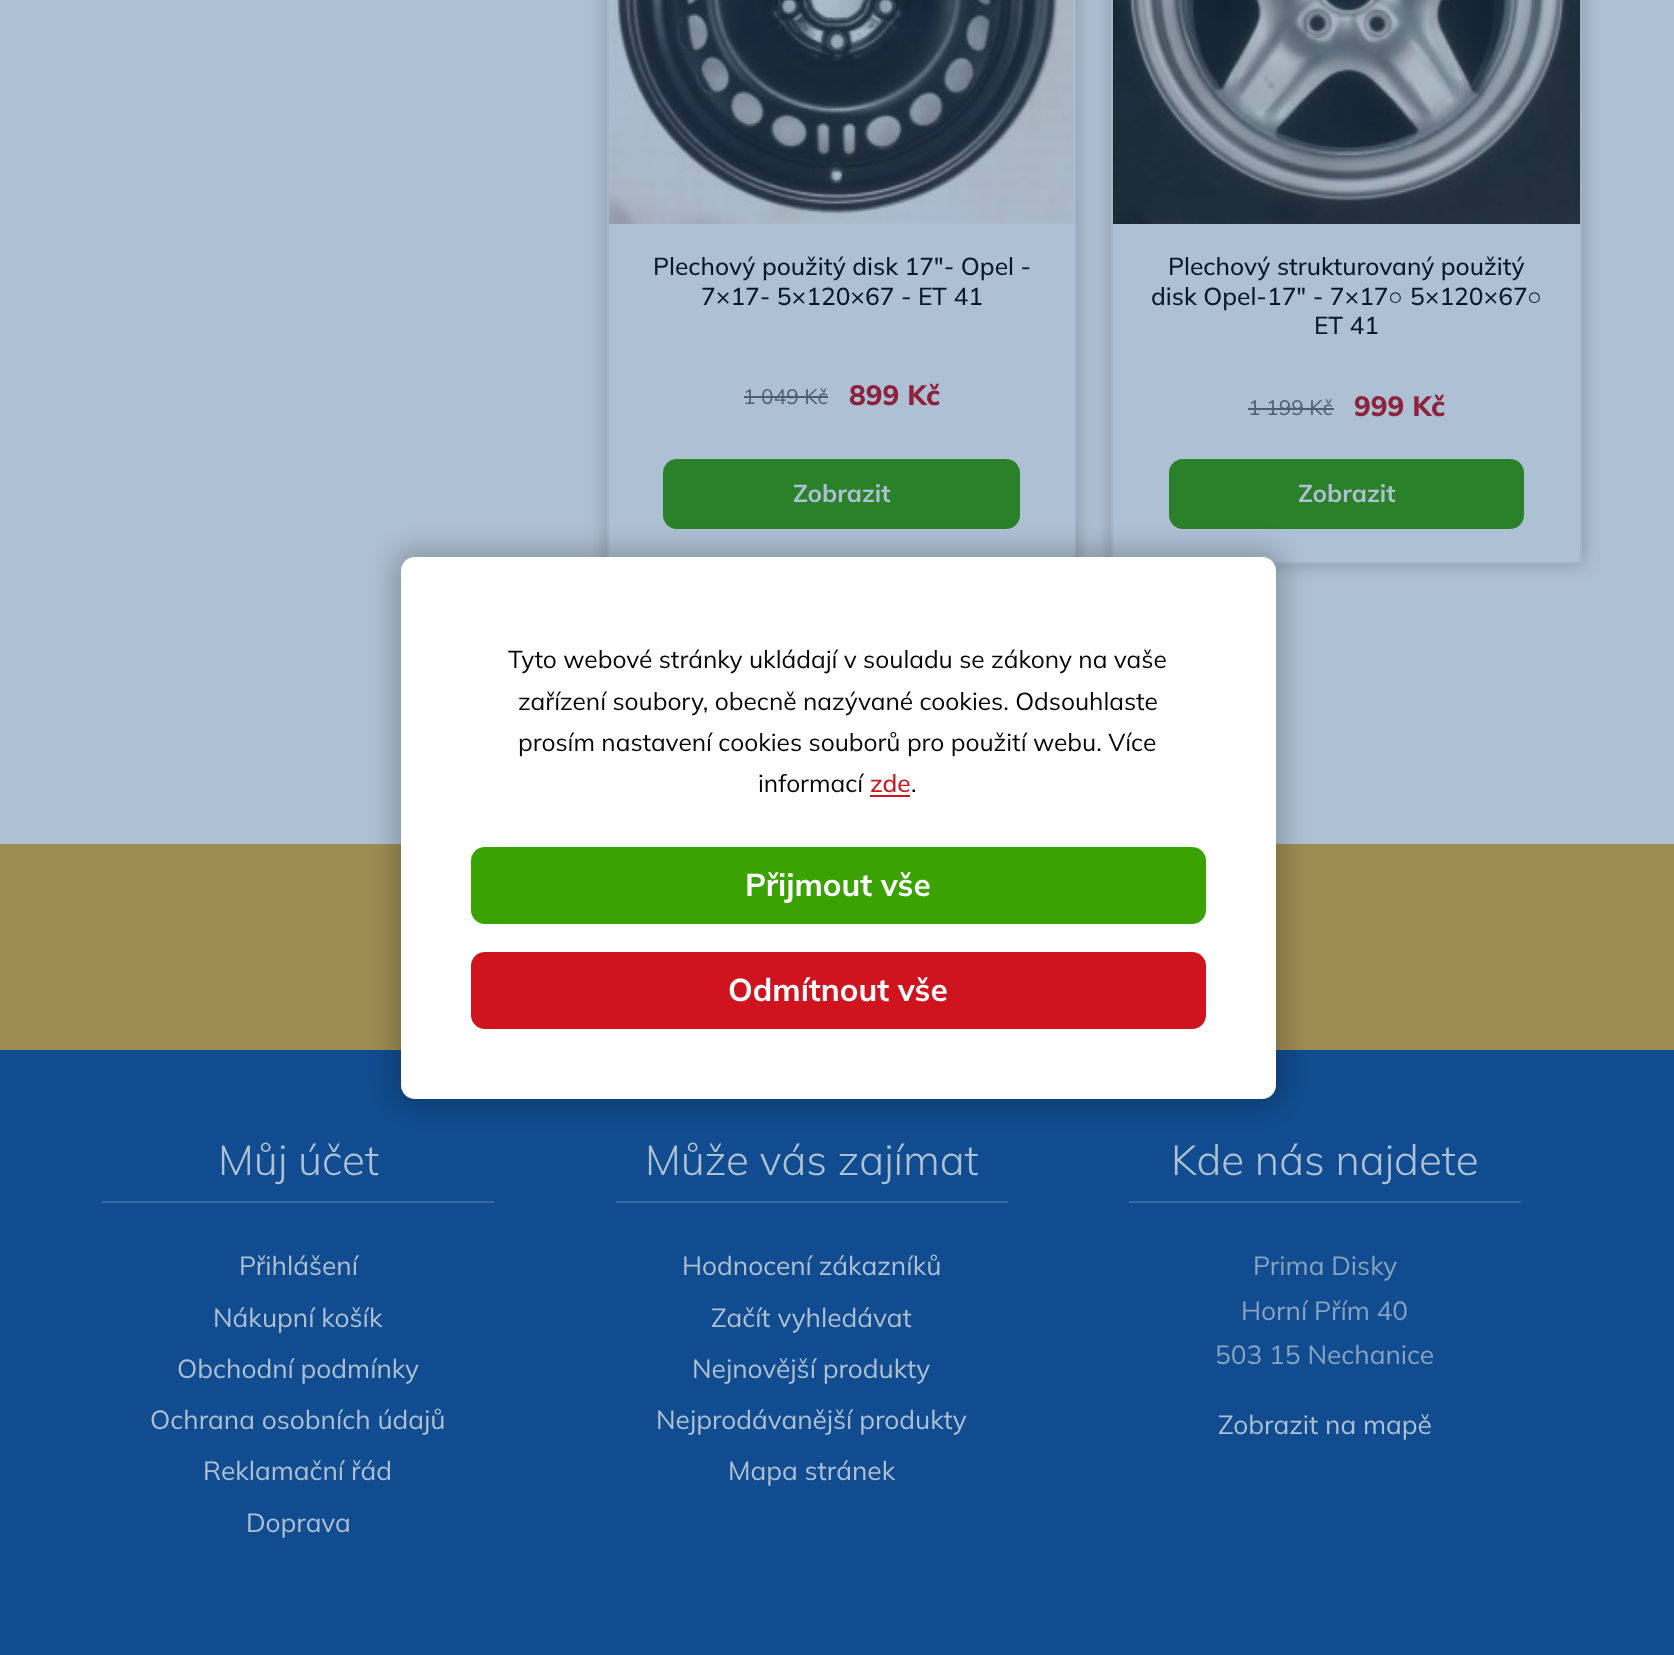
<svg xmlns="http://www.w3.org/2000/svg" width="1674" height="1655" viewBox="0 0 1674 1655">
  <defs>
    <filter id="blur1" x="-50%" y="-200%" width="200%" height="500%"><feGaussianBlur stdDeviation="9"/></filter>
    <clipPath id="clip1"><path d="M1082 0H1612V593H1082ZM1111-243H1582V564H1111Z" clip-rule="evenodd"/></clipPath>
    <filter id="blur2" x="-50%" y="-200%" width="200%" height="500%"><feGaussianBlur stdDeviation="13"/></filter>
  </defs>
  <rect width="100%" height="100%" fill="#aec0d3"/>
  <rect x="606" y="-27" width="472" height="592" fill="#041528" fill-opacity="0.2" filter="url(#blur1)"/>
  <rect x="608" y="-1" width="467" height="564" fill="none" stroke="#a3b4c7" stroke-width="2"/>
  <rect x="609" y="0" width="466" height="557" fill="#aec0d3"/>
  <image x="609" y="0" width="466" height="224" href="img1.png"/>
  <text x="653" y="275" font-family="Mulish" font-size="24.5" font-weight="500" fill="#07182b">Plechový použitý disk 17"- Opel -</text>
  <text x="701" y="305" font-family="Mulish" font-size="24.5" font-weight="500" fill="#07182b">7×17- 5×120×67 - ET 41</text>
  <text x="743" y="404" font-family="Mulish" font-size="21" fill="#4d5e71">1 049 Kč</text>
  <rect x="744" y="396" width="84" height="2" fill="#4d5e71"/>
  <text x="849" y="405" font-family="Mulish" font-size="28" font-weight="800" fill="#8e223d">899 Kč</text>
  <rect x="663" y="459" width="357" height="70" rx="14" fill="#2a8129"/>
  <text x="793" y="502" font-family="Mulish" font-size="24.5" font-weight="bold" fill="#aec0d3">Zobrazit</text>
  <g clip-path="url(#clip1)">
    <rect x="1110" y="-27" width="474" height="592" fill="#041528" fill-opacity="0.2" filter="url(#blur1)"/>
  </g>
  <rect x="1112" y="-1" width="469" height="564" fill="none" stroke="#a3b4c7" stroke-width="2"/>
  <image x="1113" y="0" width="468" height="224" href="img2.png"/>
  <text x="1168" y="275" font-family="Mulish" font-size="24.5" font-weight="500" fill="#07182b">Plechový strukturovaný použitý</text>
  <text x="1151" y="305" font-family="Mulish" font-size="24.5" font-weight="500" fill="#07182b">disk Opel-17" - 7×17</text>
  <text x="1388" y="305" font-family="Liberation Sans" font-size="24.5" fill="#07182b">○</text>
  <text x="1410" y="305" font-family="Mulish" font-size="24.5" font-weight="500" fill="#07182b">5×120×67</text>
  <text x="1527" y="305" font-family="Liberation Sans" font-size="24.5" fill="#07182b">○</text>
  <text x="1314" y="334" font-family="Mulish" font-size="24.5" font-weight="500" fill="#07182b">ET 41</text>
  <text x="1248" y="415" font-family="Mulish" font-size="21" fill="#4d5e71">1 199 Kč</text>
  <rect x="1248" y="408" width="86" height="2" fill="#4d5e71"/>
  <text x="1354" y="416" font-family="Mulish" font-size="28" font-weight="800" fill="#8e223d">999 Kč</text>
  <rect x="1169" y="459" width="355" height="70" rx="14" fill="#2a8129"/>
  <text x="1298" y="502" font-family="Mulish" font-size="24.5" font-weight="bold" fill="#aec0d3">Zobrazit</text>
  <rect x="0" y="844" width="1674" height="206" fill="#9d8c52"/>
  <rect x="0" y="1050" width="1674" height="605" fill="#104c8f"/>
  <rect x="392" y="548" width="893" height="560" rx="23" fill="#000000" fill-opacity="0.2" filter="url(#blur2)"/>
  <rect x="401" y="557" width="875" height="542" rx="14" fill="#ffffff"/>
  <text x="508" y="668" font-family="Mulish" font-size="24.5" fill="#050505">Tyto webové stránky ukládají v souladu se zákony na vaše</text>
  <text x="518" y="710" font-family="Mulish" font-size="24.5" fill="#050505">zařízení soubory, obecně nazývané cookies. Odsouhlaste</text>
  <text x="518" y="751" font-family="Mulish" font-size="24.5" fill="#050505">prosím nastavení cookies souborů pro použití webu. Více</text>
  <text x="758" y="792" font-family="Mulish" font-size="24.5" fill="#050505">informací</text>
  <text x="870" y="792" font-family="Mulish" font-size="24.5" font-weight="500" fill="#cf131f">zde</text>
  <rect x="870" y="795" width="40" height="2" fill="#cf131f"/>
  <text x="911" y="792" font-family="Mulish" font-size="24.5" fill="#050505">.</text>
  <rect x="471" y="847" width="735" height="77" rx="14" fill="#3aa202"/>
  <text x="745" y="896" font-family="Mulish" font-size="31.5" font-weight="bold" fill="#ffffff">Přijmout vše</text>
  <rect x="471" y="952" width="735" height="77" rx="14" fill="#cf131f"/>
  <text x="728" y="1001" font-family="Mulish" font-size="31.5" font-weight="bold" fill="#ffffff">Odmítnout vše</text>
  <text x="218" y="1175" font-family="Mulish" font-size="42" font-weight="300" fill="#aec0d3">Můj účet</text>
  <rect x="102" y="1201" width="392" height="2" fill="#3869a0"/>
  <text x="239" y="1275" font-family="Mulish" font-size="26.25" fill="#aec0d3">Přihlášení</text>
  <text x="213" y="1327" font-family="Mulish" font-size="26.25" fill="#aec0d3">Nákupní košík</text>
  <text x="177" y="1378" font-family="Mulish" font-size="26.25" fill="#aec0d3">Obchodní podmínky</text>
  <text x="150" y="1429" font-family="Mulish" font-size="26.25" fill="#aec0d3">Ochrana osobních údajů</text>
  <text x="203" y="1480" font-family="Mulish" font-size="26.25" fill="#aec0d3">Reklamační řád</text>
  <text x="246" y="1532" font-family="Mulish" font-size="26.25" fill="#aec0d3">Doprava</text>
  <text x="645" y="1175" font-family="Mulish" font-size="42" font-weight="300" fill="#aec0d3">Může vás zajímat</text>
  <rect x="616" y="1201" width="392" height="2" fill="#3869a0"/>
  <text x="682" y="1275" font-family="Mulish" font-size="26.25" fill="#aec0d3">Hodnocení zákazníků</text>
  <text x="711" y="1327" font-family="Mulish" font-size="26.25" fill="#aec0d3">Začít vyhledávat</text>
  <text x="692" y="1378" font-family="Mulish" font-size="26.25" fill="#aec0d3">Nejnovější produkty</text>
  <text x="656" y="1429" font-family="Mulish" font-size="26.25" fill="#aec0d3">Nejprodávanější produkty</text>
  <text x="728" y="1480" font-family="Mulish" font-size="26.25" fill="#aec0d3">Mapa stránek</text>
  <text x="1171" y="1175" font-family="Mulish" font-size="42" font-weight="300" fill="#aec0d3">Kde nás najdete</text>
  <rect x="1129" y="1201" width="392" height="2" fill="#3869a0"/>
  <text x="1253" y="1275" font-family="Mulish" font-size="26.25" fill="#87a3c2">Prima Disky</text>
  <text x="1241" y="1320" font-family="Mulish" font-size="26.25" fill="#87a3c2">Horní Přím 40</text>
  <text x="1215" y="1364" font-family="Mulish" font-size="26.25" fill="#87a3c2">503 15 Nechanice</text>
  <text x="1218" y="1434" font-family="Mulish" font-size="26.25" fill="#aec0d3">Zobrazit na mapě</text>
</svg>
